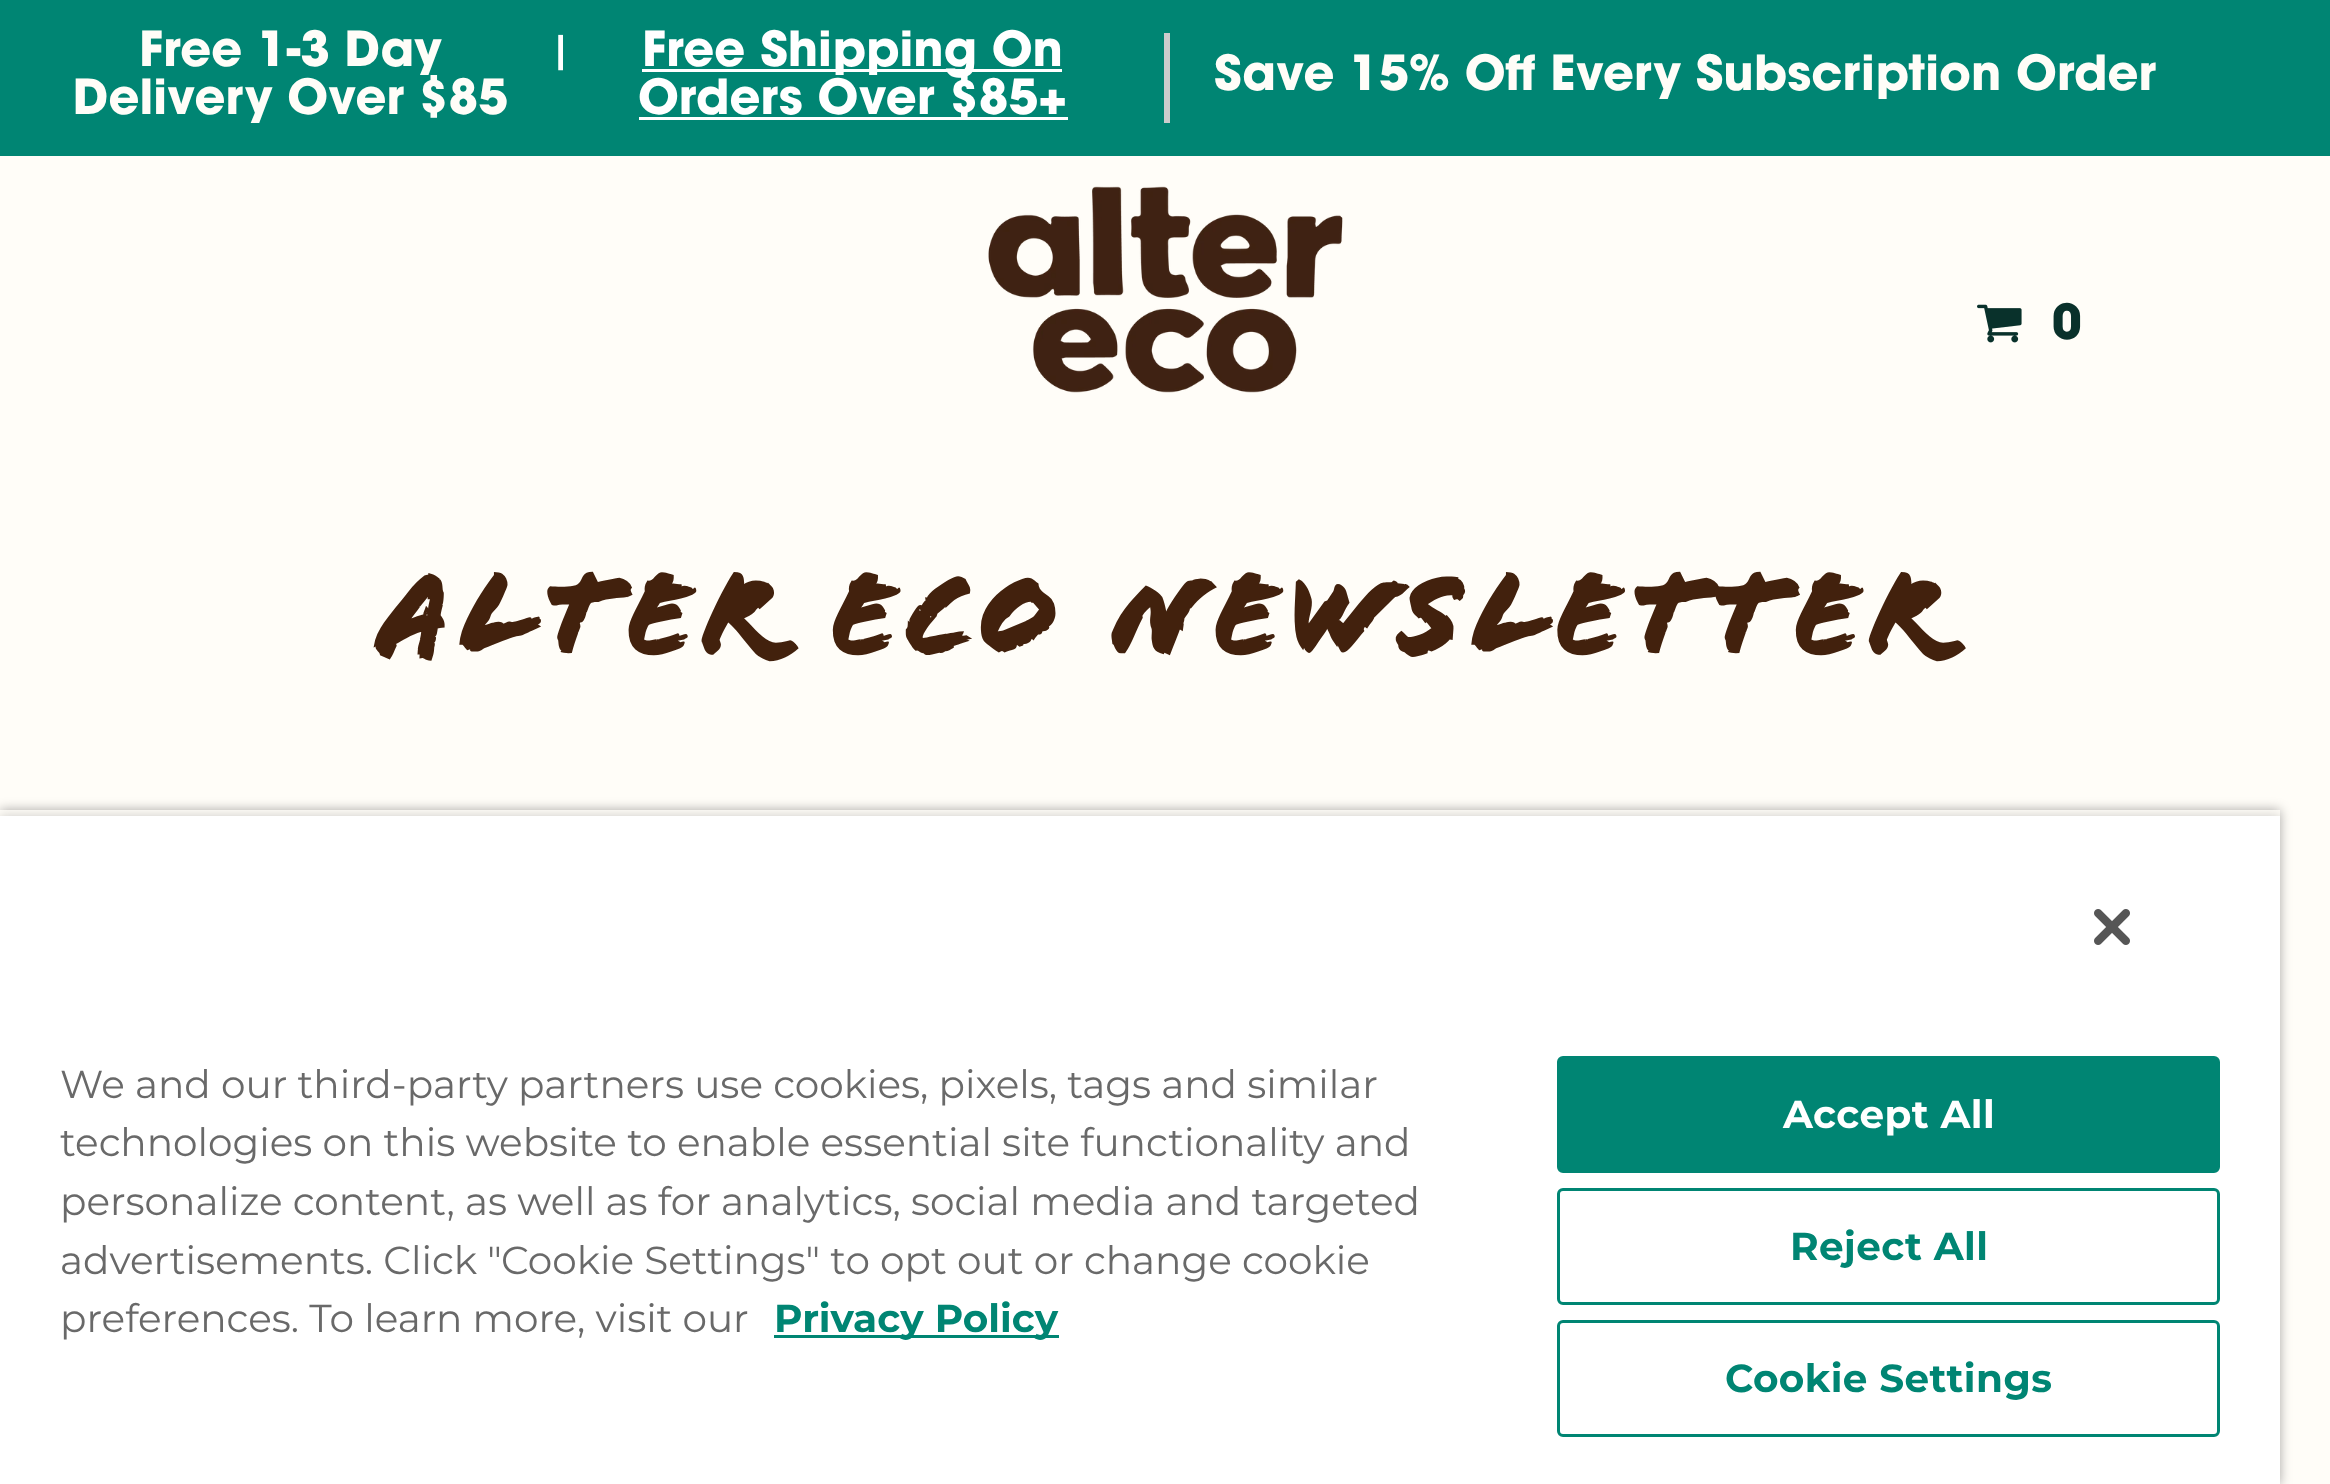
<svg xmlns="http://www.w3.org/2000/svg" width="2330" height="1484" viewBox="0 0 2330 1484">
  <defs>
    <clipPath id="clip1"><path d="M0 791H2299V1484H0ZM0 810H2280V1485H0Z" clip-rule="evenodd"/></clipPath>
    <filter id="blur1" x="-50%" y="-200%" width="200%" height="500%"><feGaussianBlur stdDeviation="6"/></filter>
    <clipPath id="clip2"><rect x="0" y="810" width="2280" height="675"/></clipPath>
  </defs>
  <rect width="100%" height="100%" fill="#fffdf8"/>
  <rect x="0" y="0" width="2330" height="156" fill="#008573"/>
  <text x="139" y="66" font-family="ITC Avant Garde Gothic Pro" font-size="48" font-weight="bold" fill="#fffdf8">Free 1-3 Day</text>
  <text x="73" y="114" font-family="ITC Avant Garde Gothic Pro" font-size="48" font-weight="bold" fill="#fffdf8">Delivery Over $85</text>
  <text x="549" y="66" font-family="ITC Avant Garde Gothic Pro" font-size="42" font-weight="500" fill="#ffffff">|</text>
  <rect x="642" y="69" width="420" height="3" fill="#ffffff"/>
  <text x="642" y="66" font-family="ITC Avant Garde Gothic Pro" font-size="48" font-weight="bold" fill="#ffffff">Free Shipping On</text>
  <rect x="639" y="117" width="429" height="3" fill="#ffffff"/>
  <text x="638" y="114" font-family="ITC Avant Garde Gothic Pro" font-size="48" font-weight="bold" fill="#ffffff">Orders Over $85+</text>
  <rect x="1164" y="33" width="6" height="90" fill="#cccccc"/>
  <text x="1214" y="90" font-family="ITC Avant Garde Gothic Pro" font-size="48" font-weight="bold" fill="#fffdf8">Save 15% Off Every Subscription Order</text>
  <image x="988" y="186" width="355" height="207" href="img1.png"/>
  <image x="1977" y="304" width="45" height="39" href="img2.png"/>
  <text x="2052" y="339" font-family="ITC Avant Garde Gothic Pro" font-size="48" font-weight="bold" fill="#09312b">0</text>
  <text x="378" y="651" font-family="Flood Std" font-size="120" font-weight="bold" letter-spacing="10.8" fill="#42210d">Alter Eco Newsletter</text>
  <g clip-path="url(#clip1)">
    <rect x="0" y="810" width="2280" height="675" fill="#000000" fill-opacity="0.35" filter="url(#blur1)"/>
  </g>
  <g clip-path="url(#clip2)">
    <rect x="0" y="816" width="2280" height="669" fill="#000000" fill-opacity="0.2" filter="url(#blur1)"/>
  </g>
  <rect x="0" y="816" width="2280" height="668" fill="#ffffff"/>
  <image x="2094" y="909" width="36" height="36" href="img3.png"/>
  <text x="60" y="1098" font-family="Montserrat" font-size="39" fill="#696969">We and our third-party partners use cookies, pixels, tags and similar</text>
  <text x="60" y="1156" font-family="Montserrat" font-size="39" fill="#696969">technologies on this website to enable essential site functionality and</text>
  <text x="60" y="1215" font-family="Montserrat" font-size="39" fill="#696969">personalize content, as well as for analytics, social media and targeted</text>
  <text x="60" y="1274" font-family="Montserrat" font-size="39" fill="#696969">advertisements. Click "Cookie Settings" to opt out or change cookie</text>
  <text x="60" y="1332" font-family="Montserrat" font-size="39" fill="#696969">preferences. To learn more, visit our</text>
  <rect x="774" y="1335" width="285" height="3" fill="#008573"/>
  <text x="774" y="1332" font-family="Montserrat" font-size="39" font-weight="bold" fill="#008573">Privacy Policy</text>
  <rect x="1558.5" y="1057.5" width="660" height="114" rx="4.5" fill="#008573" stroke="#008573" stroke-width="3"/>
  <text x="1783" y="1128" font-family="Montserrat" font-size="39" font-weight="bold" letter-spacing="0.4" fill="#ffffff">Accept All</text>
  <rect x="1558.5" y="1189.5" width="660" height="114" rx="4.5" fill="none" stroke="#008573" stroke-width="3"/>
  <text x="1790" y="1260" font-family="Montserrat" font-size="39" font-weight="bold" letter-spacing="0.4" fill="#008573">Reject All</text>
  <rect x="1558.5" y="1321.5" width="660" height="114" rx="4.5" fill="none" stroke="#008573" stroke-width="3"/>
  <text x="1725" y="1392" font-family="Montserrat" font-size="39" font-weight="bold" letter-spacing="0.4" fill="#008573">Cookie Settings</text>
</svg>
